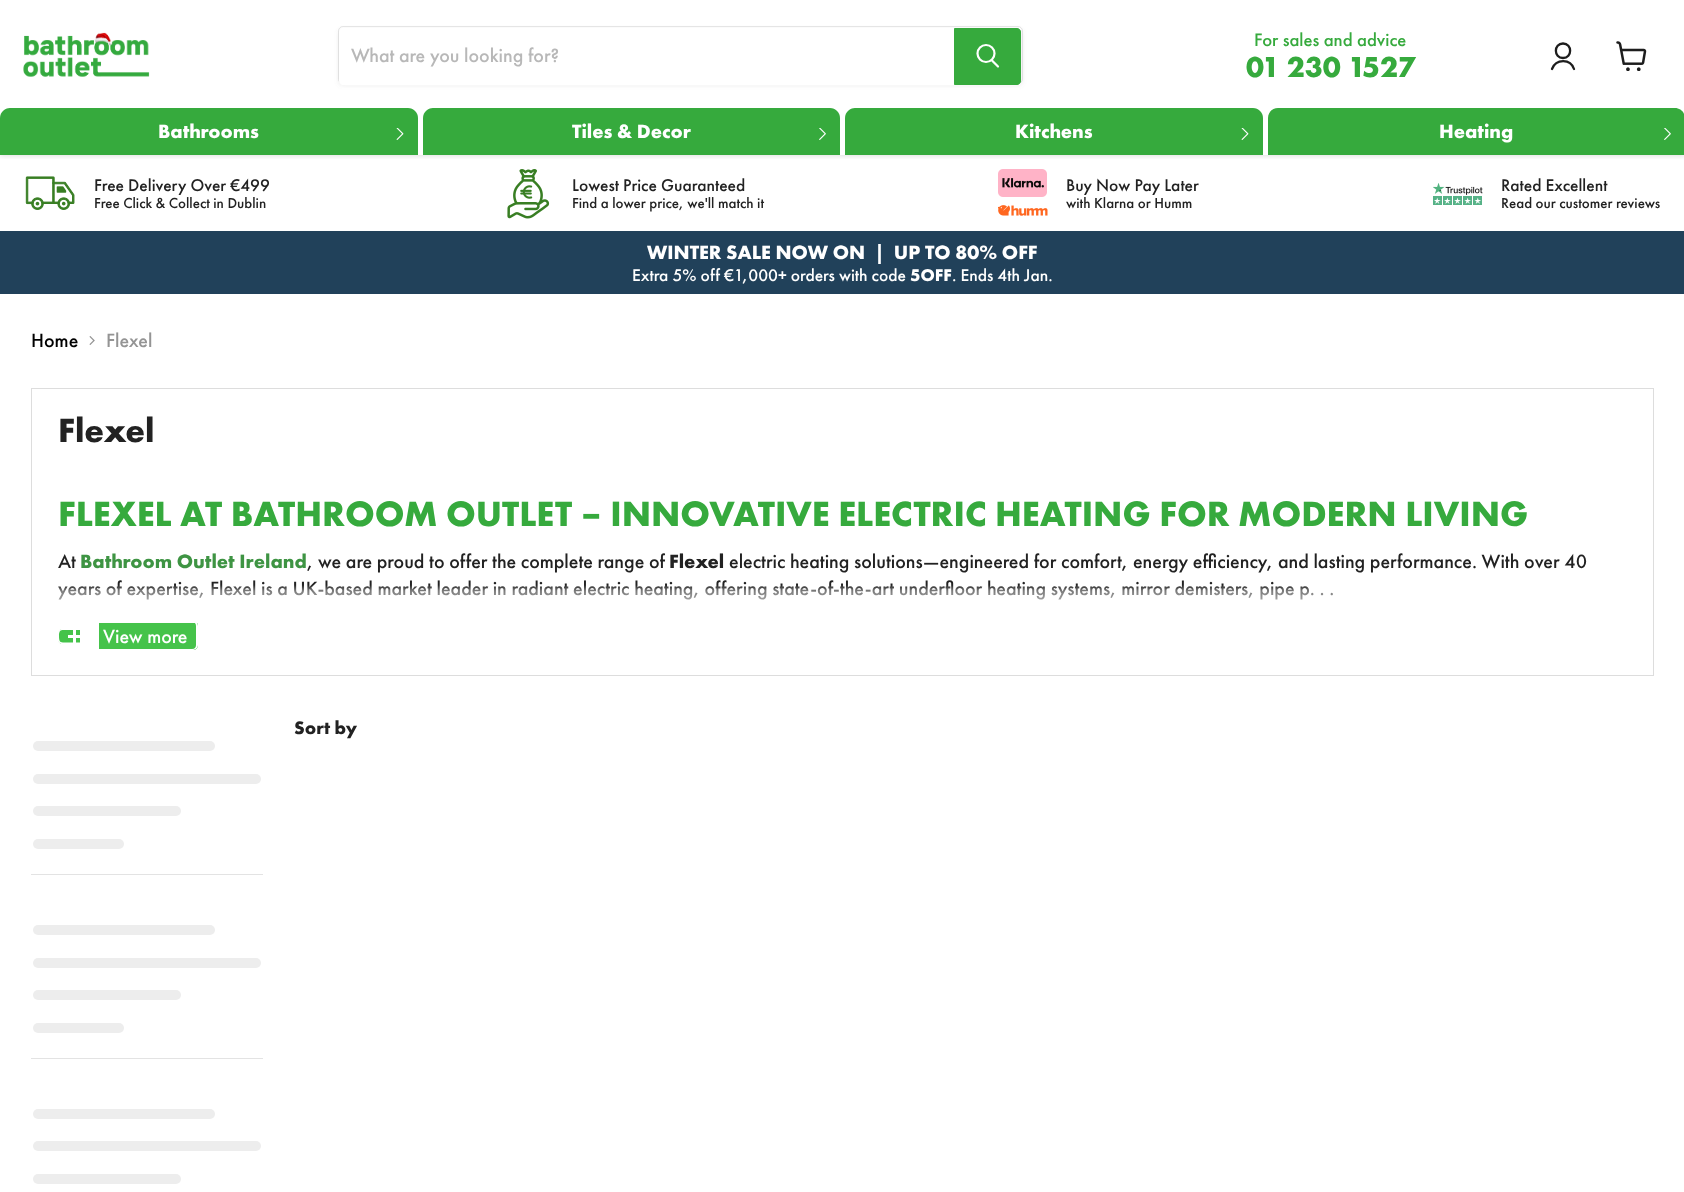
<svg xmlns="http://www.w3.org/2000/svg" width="1684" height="1192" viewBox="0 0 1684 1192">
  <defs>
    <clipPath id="clip1"><rect x="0" y="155" width="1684" height="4"/></clipPath>
    <filter id="blur1" x="-50%" y="-200%" width="200%" height="500%"><feGaussianBlur stdDeviation="2.5"/></filter>
    <filter id="blur2" x="-50%" y="-200%" width="200%" height="500%"><feGaussianBlur stdDeviation="2"/></filter>
    <linearGradient id="g1" gradientUnits="userSpaceOnUse" x1="843" y1="585" x2="843" y2="623"><stop offset="0" stop-color="#ffffff" stop-opacity="0"/><stop offset="0.15" stop-color="#ffffff" stop-opacity="0.4"/><stop offset="1" stop-color="#ffffff"/></linearGradient>
  </defs>
  <rect width="100%" height="100%" fill="#ffffff"/>
  <g clip-path="url(#clip1)">
    <rect x="0" y="1" width="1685" height="155" fill="#808080" fill-opacity="0.25" filter="url(#blur1)"/>
  </g>
  <image x="23" y="32" width="127" height="45" href="img1.png"/>
  <rect x="338" y="29" width="685" height="57" rx="5" fill="#808080" fill-opacity="0.11" filter="url(#blur2)"/>
  <rect x="338.5" y="26.5" width="684" height="57" rx="4.5" fill="none" stroke="#808080" stroke-opacity="0.2"/>
  <path d="M343 28H954V85H343C341 85 339 83 339 81V32C339 30 341 28 343 28Z" fill="#ffffff"/>
  <text x="351" y="62" font-family="Futura PT" font-size="20" font-weight="500" fill="#b8b8b8">What are you looking for?</text>
  <path d="M954.5 28.5H1017C1019 28.5 1020.5 30 1020.5 32V81C1020.5 83 1019 84.5 1017 84.5H954.5Z" fill="#36aa3d" stroke="#36aa3d"/>
  <path d="M998 66.5L992 60.5" fill="none" stroke="#ffffff" stroke-width="2.2" stroke-linecap="round"/>
  <circle cx="986" cy="53.5" r="8.5" fill="none" stroke="#ffffff" stroke-width="2.2"/>
  <text x="1254" y="46" font-family="Futura PT" font-size="18.75" font-weight="500" fill="#36aa3d">For sales and advice</text>
  <text x="1246" y="77" font-family="Futura PT" font-size="30" font-weight="bold" fill="#36aa3d">01 230 1527</text>
  <path d="M1563 58C1572.5 58 1572.5 43.5 1563 43.5C1553.5 43.5 1553.5 58 1563 58ZM1574 69C1570.5 58.5 1556 58.5 1552 69" fill="none" stroke="#1d1d1d" stroke-width="2.3" stroke-linecap="round" stroke-linejoin="round"/>
  <image x="1616" y="41" width="31" height="30" href="img2.png"/>
  <path d="M10 108H408C413.5 108 418 112.5 418 118V155H0V118C0 112.5 4.5 108 10 108Z" fill="#36aa3d"/>
  <text x="158" y="138" font-family="Futura PT" font-size="20" font-weight="bold" fill="#ffffff">Bathrooms</text>
  <image x="396" y="128" width="8" height="12" href="img3.png"/>
  <path d="M433 108H830C835.5 108 840 112.5 840 118V155H423V118C423 112.5 427.5 108 433 108Z" fill="#36aa3d"/>
  <text x="572" y="138" font-family="Futura PT" font-size="20" font-weight="bold" fill="#ffffff">Tiles &amp; Decor</text>
  <image x="819" y="128" width="7" height="12" href="img4.png"/>
  <path d="M855 108H1253C1258.5 108 1263 112.5 1263 118V155H845V118C845 112.5 849.5 108 855 108Z" fill="#36aa3d"/>
  <text x="1015" y="138" font-family="Futura PT" font-size="20" font-weight="bold" fill="#ffffff">Kitchens</text>
  <image x="1241" y="128" width="8" height="12" href="img3.png"/>
  <path d="M1278 108H1675C1680.5 108 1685 112.5 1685 118V155H1268V118C1268 112.5 1272.5 108 1278 108Z" fill="#36aa3d"/>
  <text x="1439" y="138" font-family="Futura PT" font-size="20" font-weight="bold" fill="#ffffff">Heating</text>
  <image x="1664" y="128" width="7" height="12" href="img4.png"/>
  <image x="25" y="176" width="50" height="34" href="img5.png"/>
  <text x="94" y="191" font-family="Futura PT" font-size="17.5" font-weight="500" fill="#222222">Free Delivery Over €499</text>
  <text x="94" y="208" font-family="Futura PT" font-size="15" font-weight="500" fill="#222222">Free Click &amp; Collect in Dublin</text>
  <image x="507" y="169" width="43" height="50" href="img6.png"/>
  <text x="572" y="191" font-family="Futura PT" font-size="17.5" font-weight="500" fill="#222222">Lowest Price Guaranteed</text>
  <text x="572" y="208" font-family="Futura PT" font-size="15" font-weight="500" fill="#222222">Find a lower price, we'll match it</text>
  <image x="998" y="169" width="50" height="47" href="img7.png"/>
  <text x="1066" y="191" font-family="Futura PT" font-size="17.5" font-weight="500" fill="#222222">Buy Now Pay Later</text>
  <text x="1066" y="208" font-family="Futura PT" font-size="15" font-weight="500" fill="#222222">with Klarna or Humm</text>
  <image x="1433" y="183" width="50" height="22" href="img8.png"/>
  <text x="1501" y="191" font-family="Futura PT" font-size="17.5" font-weight="500" fill="#222222">Rated Excellent</text>
  <text x="1501" y="208" font-family="Futura PT" font-size="15" font-weight="500" fill="#222222">Read our customer reviews</text>
  <rect x="0" y="231" width="1684" height="63" fill="#21415a"/>
  <text x="647" y="259" font-family="Futura PT" font-size="20" font-weight="bold" fill="#ffffff" xml:space="preserve">WINTER SALE NOW ON  |  UP TO 80% OFF</text>
  <text x="632" y="281" font-family="Futura PT" font-size="17.5" font-weight="500" fill="#ffffff">Extra 5% off €1,000+ orders with code</text>
  <text x="910" y="281" font-family="Futura PT" font-size="17.5" font-weight="bold" fill="#ffffff">5OFF</text>
  <text x="952" y="281" font-family="Futura PT" font-size="17.5" font-weight="500" fill="#ffffff">. Ends 4th Jan.</text>
  <text x="31" y="347" font-family="Futura PT" font-size="20" font-weight="500" fill="#000000">Home</text>
  <image x="89" y="336" width="6" height="9" href="img9.png"/>
  <text x="106" y="347" font-family="Futura PT" font-size="20" font-weight="500" fill="#949494">Flexel</text>
  <rect x="31.5" y="388.5" width="1622" height="287" fill="none" stroke="#dddddd"/>
  <text x="58" y="442" font-family="Futura PT" font-size="35" font-weight="bold" fill="#222222">Flexel</text>
  <text x="58" y="526" font-family="Futura PT" font-size="36.5" font-weight="bold" fill="#36aa3d">FLEXEL AT BATHROOM OUTLET – INNOVATIVE ELECTRIC HEATING FOR MODERN LIVING</text>
  <text x="58" y="568" font-family="Futura PT" font-size="20" font-weight="500" fill="#222222">At</text>
  <text x="80" y="568" font-family="Futura PT" font-size="20" font-weight="bold" fill="#3e9443">Bathroom Outlet Ireland</text>
  <text x="307" y="568" font-family="Futura PT" font-size="20" font-weight="500" fill="#222222">, we are proud to offer the complete range of</text>
  <text x="669" y="568" font-family="Futura PT" font-size="20" font-weight="bold" fill="#222222">Flexel</text>
  <text x="729" y="568" font-family="Futura PT" font-size="20" font-weight="500" fill="#222222">electric heating solutions—engineered for comfort, energy efficiency, and lasting performance. With over 40</text>
  <text x="58" y="595" font-family="Futura PT" font-size="20" font-weight="500" fill="#222222">years of expertise, Flexel is a UK-based market leader in radiant electric heating, offering state-of-the-art underfloor heating systems, mirror demisters, pipe p. . .</text>
  <path d="M99 621H193C196 621 198 623 198 626V645C198 648 196 650 193 650H99Z" fill="#45c34a"/>
  <path d="M99 621H192C195 621 198 623 198 626V645C198 648 195 650 192 650H99ZM99 622H192C195 622 196 624 196 626V645C196 647 195 649 192 649H99Z" fill="#ffffff" fill-rule="evenodd"/>
  <rect x="58" y="585" width="1275" height="38" fill="url(#g1)"/>
  <path d="M63 629H80V644H63C60 644 58 642 58 639V634C58 631 60 629 63 629Z" fill="#45c34a"/>
  <path d="M62.5 629H80V644H62.5C59.5 644 57.5 641.5 57.5 639V634C57.5 631 59.5 629 62.5 629ZM62.5 630H80V642.5H68.5C60.5 642.5 59 643.5 59 635.5C59 633 59.5 630 62.5 630Z" fill="#ffffff" fill-rule="evenodd"/>
  <rect x="73" y="630" width="3" height="13" fill="#ffffff"/>
  <rect x="68" y="635" width="12" height="3" fill="#ffffff"/>
  <text x="103" y="643" font-family="Futura PT" font-size="20" font-weight="500" fill="#ffffff">View more</text>
  <text x="294" y="734" font-family="Futura PT" font-size="18.75" font-weight="bold" fill="#222222">Sort by</text>
  <rect x="33" y="741" width="182" height="10" rx="5" fill="#ededed"/>
  <rect x="33" y="774" width="228" height="10" rx="5" fill="#ededed"/>
  <rect x="33" y="806" width="148" height="10" rx="5" fill="#ededed"/>
  <rect x="33" y="839" width="91" height="10" rx="5" fill="#ededed"/>
  <rect x="31" y="874" width="232" height="1" fill="#e3e3e3"/>
  <rect x="33" y="925" width="182" height="10" rx="5" fill="#ededed"/>
  <rect x="33" y="958" width="228" height="10" rx="5" fill="#ededed"/>
  <rect x="33" y="990" width="148" height="10" rx="5" fill="#ededed"/>
  <rect x="33" y="1023" width="91" height="10" rx="5" fill="#ededed"/>
  <rect x="31" y="1058" width="232" height="1" fill="#e3e3e3"/>
  <rect x="33" y="1109" width="182" height="10" rx="5" fill="#ededed"/>
  <rect x="33" y="1141" width="228" height="10" rx="5" fill="#ededed"/>
  <rect x="33" y="1174" width="148" height="10" rx="5" fill="#ededed"/>
</svg>
